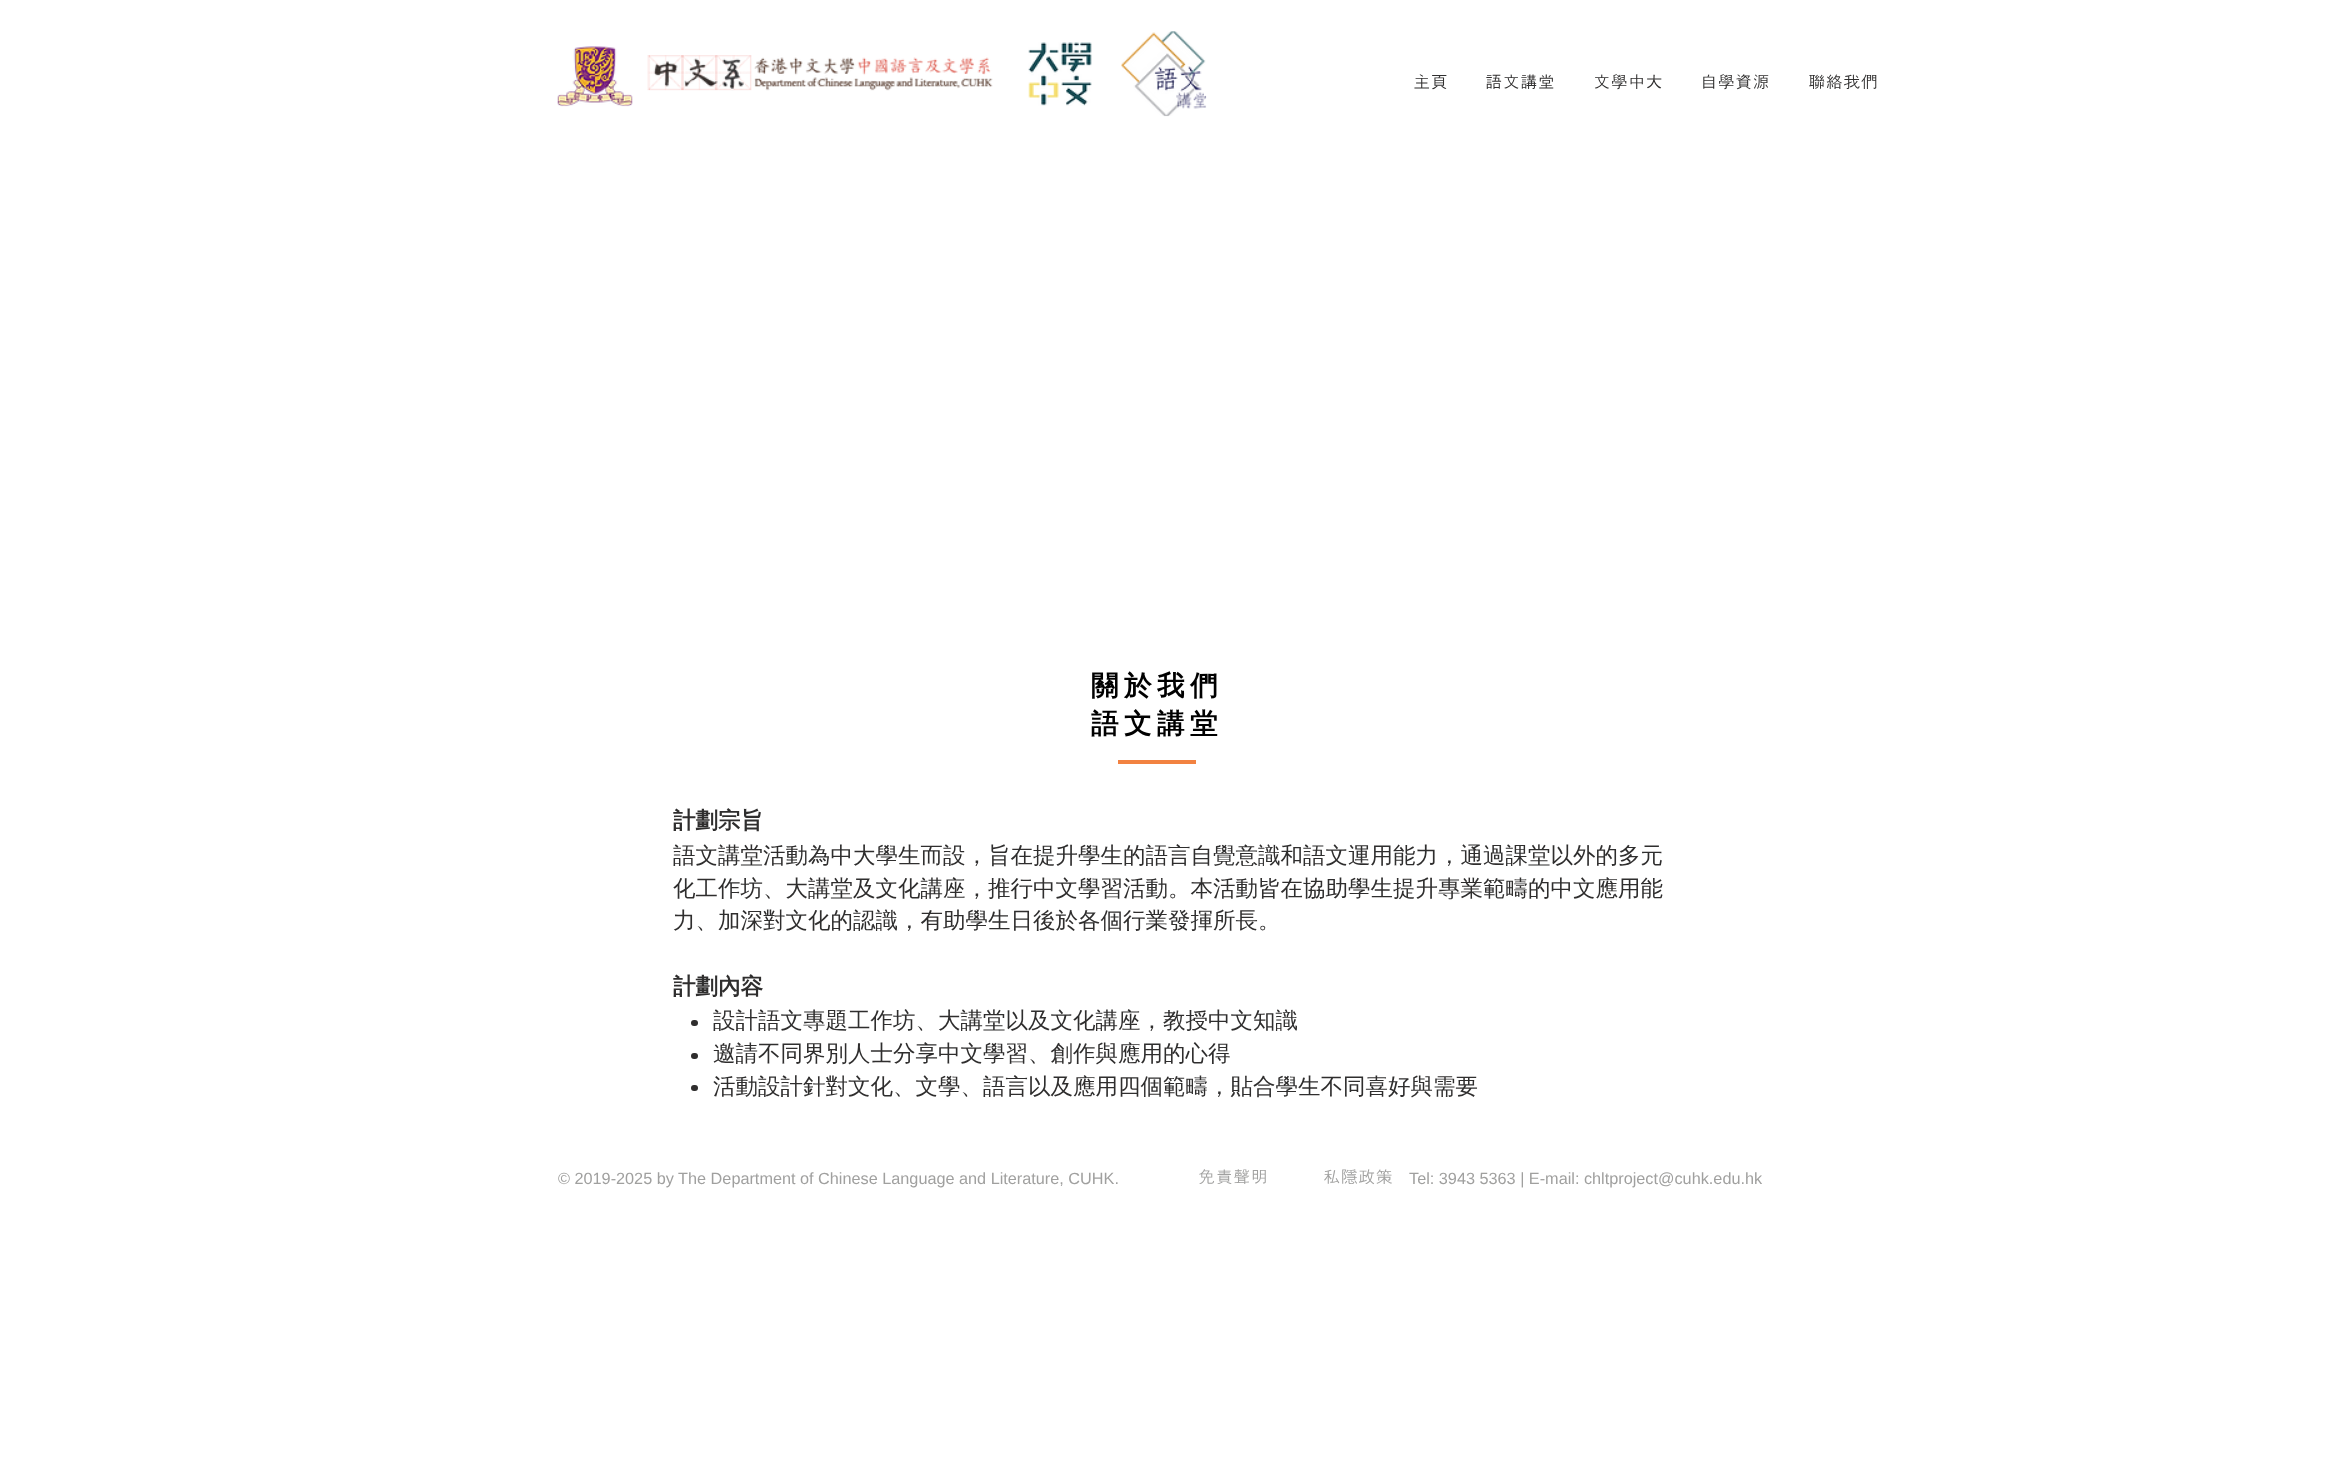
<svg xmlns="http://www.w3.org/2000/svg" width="2340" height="1462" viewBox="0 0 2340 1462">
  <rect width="100%" height="100%" fill="#ffffff"/>
  <image x="557" y="46" width="76" height="61" href="img1.png"/>
  <image x="647" y="55" width="346" height="36" href="img2.png"/>
  <image x="1028" y="42" width="64" height="64" href="img3.png"/>
  <image x="1121" y="31" width="86" height="86" href="img4.png"/>
  <text x="1413" y="88" font-family="Dotum" font-size="17.5" fill="#2f2e2e">主頁</text>
  <text x="1485" y="88" font-family="Dotum" font-size="17.5" fill="#2f2e2e">語文講堂</text>
  <text x="1593" y="88" font-family="Dotum" font-size="17.5" fill="#2f2e2e">文學中大</text>
  <text x="1700" y="88" font-family="Dotum" font-size="17.5" fill="#2f2e2e">自學資源</text>
  <text x="1808" y="88" font-family="Dotum" font-size="17.5" fill="#2f2e2e">聯絡我們</text>
  <text x="1091" y="695" font-family="WenQuanYi Zen Hei" font-size="27.5" font-weight="bold" letter-spacing="5.5" fill="#000000">關於我們</text>
  <text x="1091" y="733" font-family="WenQuanYi Zen Hei" font-size="27.5" font-weight="bold" letter-spacing="5.5" fill="#000000">語文講堂</text>
  <rect x="1118" y="760" width="78" height="4" fill="#f28241"/>
  <text x="673" y="828" font-family="WenQuanYi Zen Hei" font-size="22.5" font-weight="bold" fill="#2f2e2e">計劃宗旨</text>
  <text x="673" y="863" font-family="WenQuanYi Zen Hei" font-size="22.5" font-weight="500" fill="#2f2e2e">語文講堂活動為中大學生而設，旨在提升學生的語言自覺意識和語文運用能力，通過課堂以外的多元</text>
  <text x="673" y="896" font-family="WenQuanYi Zen Hei" font-size="22.5" font-weight="500" fill="#2f2e2e">化工作坊、大講堂及文化講座，推行中文學習活動。本活動皆在協助學生提升專業範疇的中文應用能</text>
  <text x="673" y="928" font-family="WenQuanYi Zen Hei" font-size="22.5" font-weight="500" fill="#2f2e2e">力、加深對文化的認識，有助學生日後於各個行業發揮所長。</text>
  <text x="673" y="994" font-family="WenQuanYi Zen Hei" font-size="22.5" font-weight="bold" fill="#2f2e2e">計劃內容</text>
  <rect x="691" y="1020" width="7" height="6" rx="3" fill="#2f2e2e"/>
  <text x="713" y="1028" font-family="WenQuanYi Zen Hei" font-size="22.5" font-weight="500" fill="#2f2e2e">設計語文專題工作坊、大講堂以及文化講座，教授中文知識</text>
  <rect x="691" y="1053" width="7" height="6" rx="3" fill="#2f2e2e"/>
  <text x="713" y="1061" font-family="WenQuanYi Zen Hei" font-size="22.5" font-weight="500" fill="#2f2e2e">邀請不同界別人士分享中文學習、創作與應用的心得</text>
  <rect x="691" y="1085" width="7" height="6" rx="3" fill="#2f2e2e"/>
  <text x="713" y="1094" font-family="WenQuanYi Zen Hei" font-size="22.5" font-weight="500" fill="#2f2e2e">活動設計針對文化、文學、語言以及應用四個範疇，貼合學生不同喜好與需要</text>
  <text x="558" y="1184" font-family="Liberation Sans" font-size="16.25" fill="#a0a09f">© 2019-2025 by The Department of Chinese Language and Literature, CUHK.</text>
  <text x="1198" y="1183" font-family="Dotum" font-size="17.5" fill="#a0a09f">免責聲明</text>
  <text x="1323" y="1183" font-family="Dotum" font-size="17.5" fill="#a0a09f">私隱政策</text>
  <text x="1409" y="1184" font-family="Liberation Sans" font-size="16.25" fill="#a0a09f">Tel: 3943 5363 | E-mail: chltproject@cuhk.edu.hk</text>
</svg>
